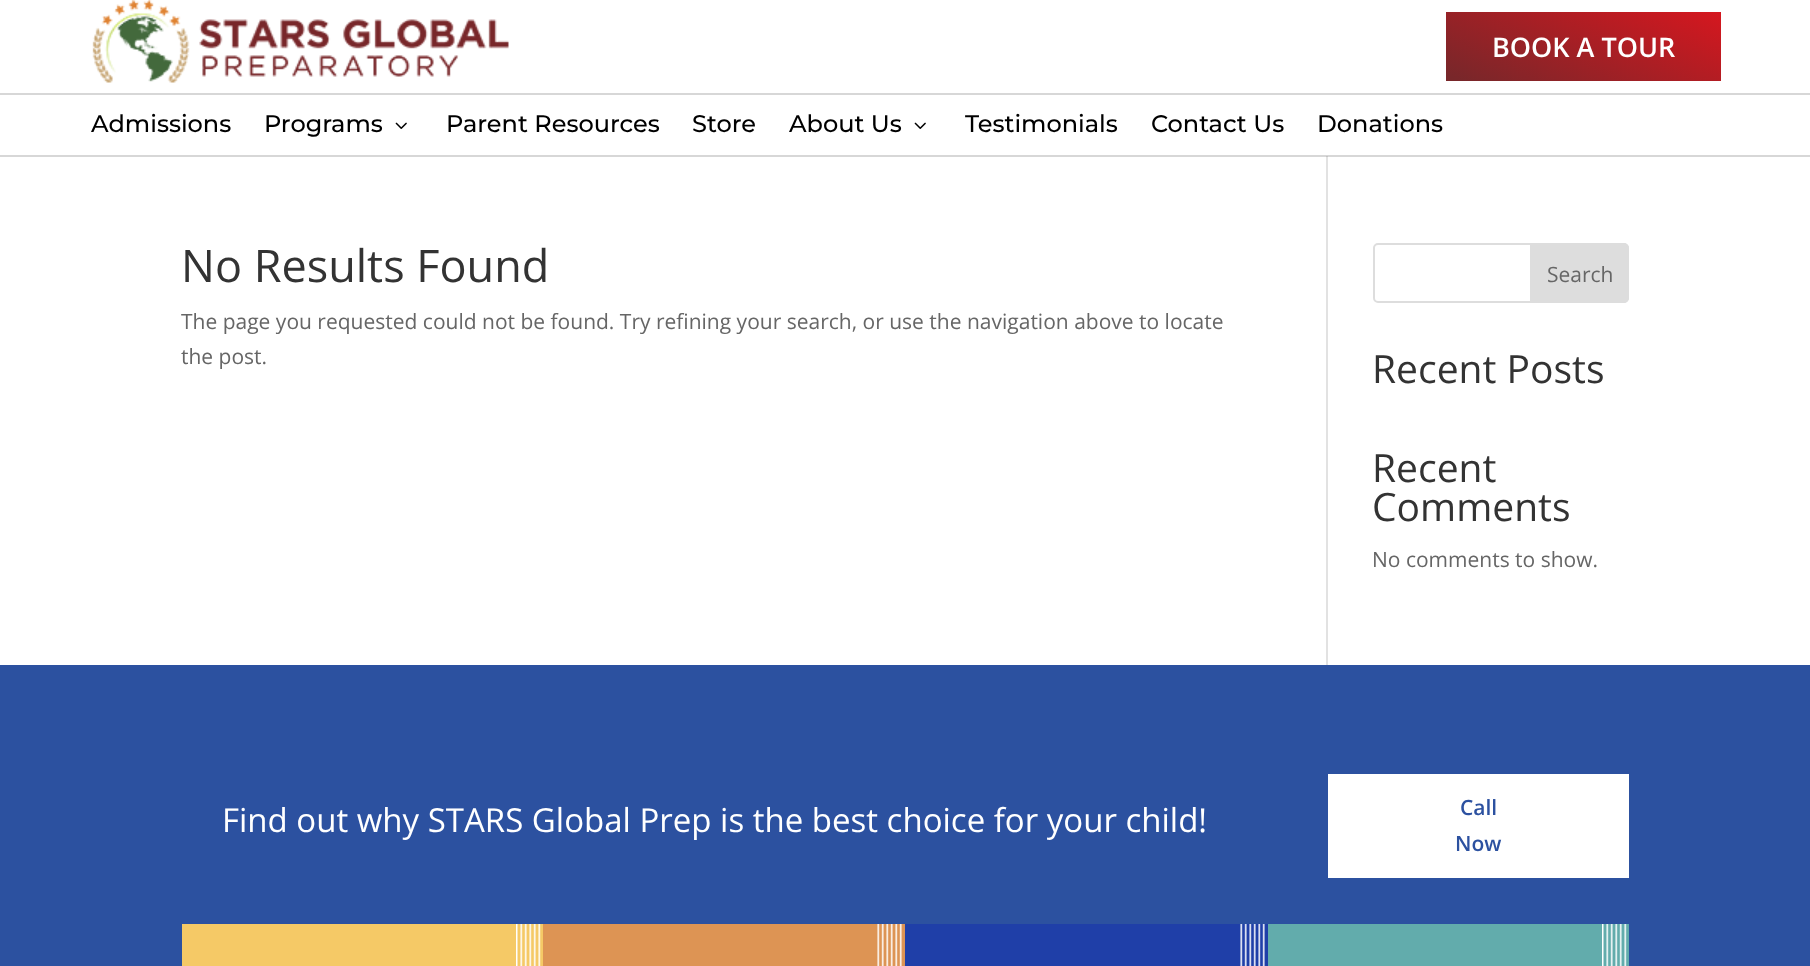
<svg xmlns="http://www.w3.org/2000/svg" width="1810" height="966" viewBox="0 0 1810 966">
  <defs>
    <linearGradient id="g1" gradientUnits="userSpaceOnUse" x1="1621" y1="-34" x2="1546" y2="127"><stop offset="0" stop-color="#d5171f"/><stop offset="0.97" stop-color="#78272a"/></linearGradient>
  </defs>
  <rect width="100%" height="100%" fill="#ffffff"/>
  <rect x="0" y="155" width="1810" height="2" fill="#d7d7d7"/>
  <rect x="0" y="93" width="1810" height="2" fill="#d7d7d7"/>
  <image x="92" y="0" width="417" height="83" href="img1.png"/>
  <rect x="1446" y="12" width="275" height="69" fill="url(#g1)"/>
  <text x="1492" y="57" font-family="Open Sans" font-size="27" font-weight="600" fill="#ffffff">BOOK A TOUR</text>
  <text x="91" y="132" font-family="Montserrat" font-size="24" font-weight="500" fill="#000000">Admissions</text>
  <text x="264" y="132" font-family="Montserrat" font-size="24" font-weight="500" fill="#000000">Programs</text>
  <image x="395" y="122" width="12" height="7" href="img2.png"/>
  <text x="446" y="132" font-family="Montserrat" font-size="24" font-weight="500" fill="#000000">Parent Resources</text>
  <text x="692" y="132" font-family="Montserrat" font-size="24" font-weight="500" fill="#000000">Store</text>
  <text x="789" y="132" font-family="Montserrat" font-size="24" font-weight="500" fill="#000000">About Us</text>
  <image x="914" y="122" width="12" height="7" href="img2.png"/>
  <text x="965" y="132" font-family="Montserrat" font-size="24" font-weight="500" fill="#000000">Testimonials</text>
  <text x="1151" y="132" font-family="Montserrat" font-size="24" font-weight="500" fill="#000000">Contact Us</text>
  <text x="1317" y="132" font-family="Montserrat" font-size="24" font-weight="500" fill="#000000">Donations</text>
  <rect x="1326" y="156" width="2" height="509" fill="#e2e2e2"/>
  <rect x="1326" y="156" width="2" height="1" fill="#c3c3c3"/>
  <text x="181" y="282" font-family="Open Sans" font-size="45" fill="#333333">No Results Found</text>
  <text x="181" y="329" font-family="Open Sans" font-size="21" fill="#666666">The page you requested could not be found. Try refining your search, or use the navigation above to locate</text>
  <text x="181" y="364" font-family="Open Sans" font-size="21" fill="#666666">the post.</text>
  <rect x="1374" y="244" width="254" height="58" rx="4" fill="none" stroke="#dddddd" stroke-width="2"/>
  <path d="M1531 244H1624C1626 244 1628 246 1628 248V298C1628 300 1626 302 1624 302H1531Z" fill="#dddddd" stroke="#dddddd" stroke-width="2"/>
  <text x="1547" y="282" font-family="Open Sans" font-size="21" fill="#666666">Search</text>
  <text x="1372" y="383" font-family="Open Sans" font-size="39" fill="#333333">Recent Posts</text>
  <text x="1372" y="482" font-family="Open Sans" font-size="39" fill="#333333">Recent</text>
  <text x="1372" y="521" font-family="Open Sans" font-size="39" fill="#333333">Comments</text>
  <text x="1372" y="567" font-family="Open Sans" font-size="21" fill="#666666">No comments to show.</text>
  <rect x="0" y="665" width="1810" height="301" fill="#2c51a0"/>
  <text x="222" y="832" font-family="Open Sans" font-size="33" fill="#ffffff">Find out why STARS Global Prep is the best choice for your child!</text>
  <rect x="1328" y="774" width="301" height="104" fill="#ffffff"/>
  <text x="1460" y="815" font-family="Open Sans" font-size="21" font-weight="600" fill="#2c51a0">Call</text>
  <text x="1455" y="851" font-family="Open Sans" font-size="21" font-weight="600" fill="#2c51a0">Now</text>
  <rect x="182" y="924" width="361" height="42" fill="#f5c966"/>
  <image x="516" y="924" width="25" height="42" href="img3.png"/>
  <rect x="543" y="924" width="362" height="42" fill="#dd9454"/>
  <image x="877" y="924" width="25" height="42" href="img4.png"/>
  <rect x="905" y="924" width="363" height="42" fill="#1f3fa8"/>
  <image x="1240" y="924" width="25" height="42" href="img5.png"/>
  <rect x="1268" y="924" width="361" height="42" fill="#62acac"/>
  <image x="1602" y="924" width="25" height="42" href="img6.png"/>
</svg>
